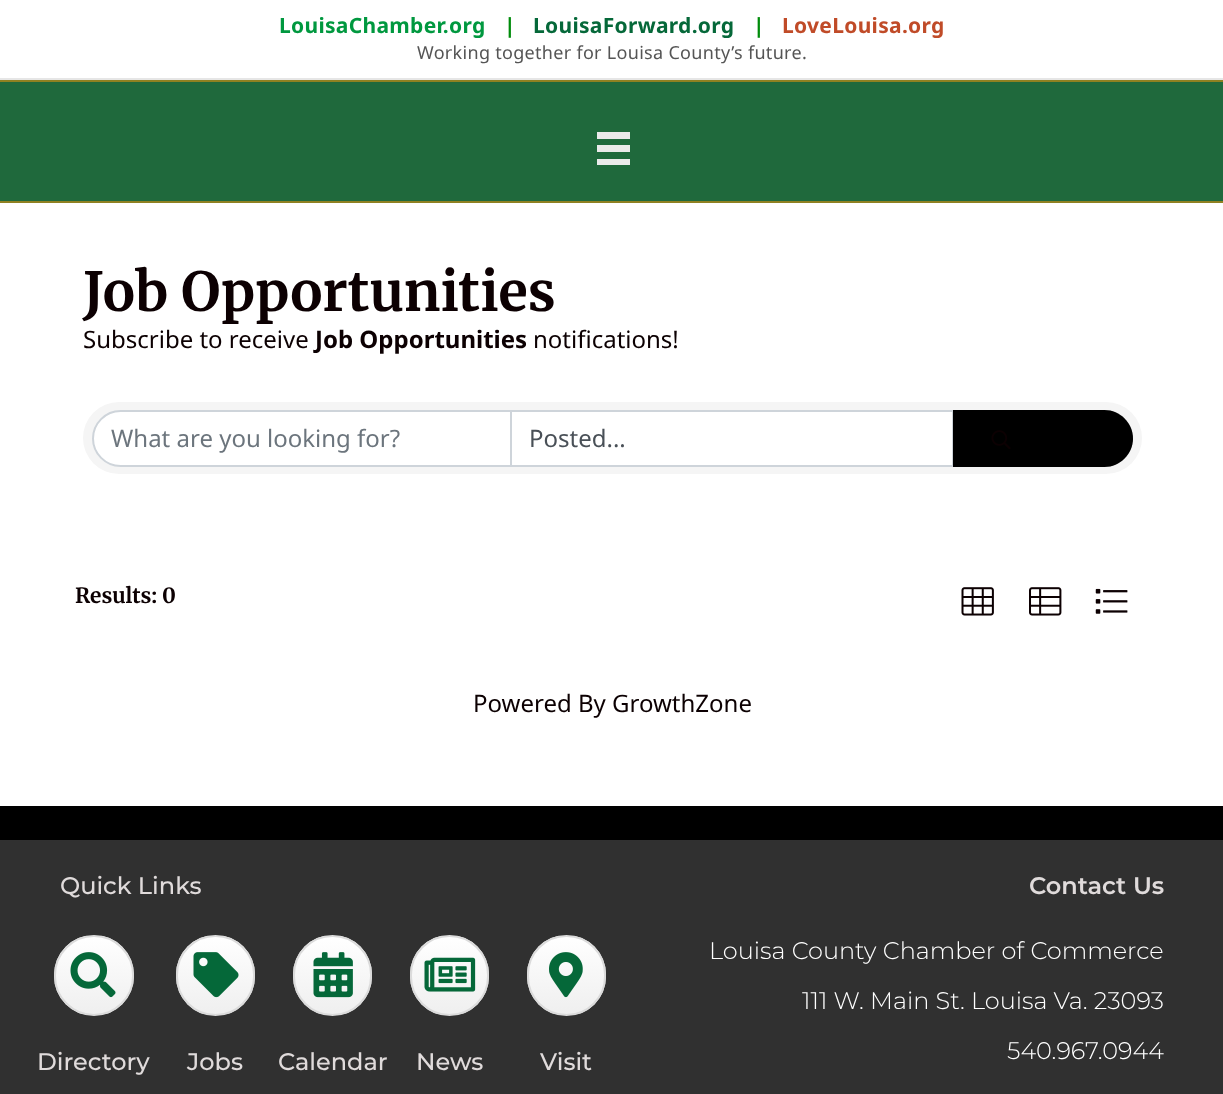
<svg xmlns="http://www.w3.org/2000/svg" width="1223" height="1094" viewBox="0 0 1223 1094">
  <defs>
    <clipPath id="clip1"><rect x="54" y="935" width="80" height="81" rx="40"/></clipPath>
    <linearGradient id="g1" gradientUnits="userSpaceOnUse" x1="94" y1="936" x2="94" y2="1014"><stop offset="0" stop-color="#ffffff"/><stop offset="1" stop-color="#efefef"/></linearGradient>
    <clipPath id="clip2"><rect x="176" y="935" width="79" height="81" rx="39.5"/></clipPath>
    <linearGradient id="g2" gradientUnits="userSpaceOnUse" x1="215" y1="936" x2="215" y2="1014"><stop offset="0" stop-color="#ffffff"/><stop offset="1" stop-color="#efefef"/></linearGradient>
    <clipPath id="clip3"><rect x="293" y="935" width="79" height="81" rx="39.5"/></clipPath>
    <linearGradient id="g3" gradientUnits="userSpaceOnUse" x1="332" y1="936" x2="332" y2="1014"><stop offset="0" stop-color="#ffffff"/><stop offset="1" stop-color="#efefef"/></linearGradient>
    <clipPath id="clip4"><rect x="410" y="935" width="79" height="81" rx="39.5"/></clipPath>
    <linearGradient id="g4" gradientUnits="userSpaceOnUse" x1="449" y1="936" x2="449" y2="1014"><stop offset="0" stop-color="#ffffff"/><stop offset="1" stop-color="#efefef"/></linearGradient>
    <clipPath id="clip5"><rect x="527" y="935" width="79" height="81" rx="39.5"/></clipPath>
    <linearGradient id="g5" gradientUnits="userSpaceOnUse" x1="566" y1="936" x2="566" y2="1014"><stop offset="0" stop-color="#ffffff"/><stop offset="1" stop-color="#efefef"/></linearGradient>
  </defs>
  <rect width="100%" height="100%" fill="#000000"/>
  <rect x="0" y="0" width="1223" height="78" fill="#ffffff"/>
  <rect x="0" y="78" width="1223" height="2" fill="#e6e6e6"/>
  <text x="279" y="33" font-family="Noto Sans" font-size="21" font-weight="bold" letter-spacing="0.3" fill="#00983f">LouisaChamber.org</text>
  <text x="504" y="33" font-family="Noto Sans" font-size="21" font-weight="bold" letter-spacing="0.3" fill="#008c0b">|</text>
  <text x="533" y="33" font-family="Noto Sans" font-size="21" font-weight="bold" letter-spacing="0.3" fill="#056839">LouisaForward.org</text>
  <text x="753" y="33" font-family="Noto Sans" font-size="21" font-weight="bold" letter-spacing="0.3" fill="#008c0b">|</text>
  <text x="782" y="33" font-family="Noto Sans" font-size="21" font-weight="bold" letter-spacing="0.3" fill="#c04b28">LoveLouisa.org</text>
  <text x="417" y="59" font-family="Noto Sans" font-size="18" letter-spacing="0.3" fill="#555555">Working together for Louisa County’s future.</text>
  <rect x="0" y="82" width="1223" height="119" fill="#1f693c"/>
  <rect x="0" y="80" width="1223" height="2" fill="#8f8121"/>
  <rect x="0" y="201" width="1223" height="2" fill="#8f8121"/>
  <rect x="597" y="132" width="33" height="7" fill="#eaeaea"/>
  <rect x="597" y="145" width="33" height="7" fill="#eaeaea"/>
  <rect x="597" y="159" width="33" height="6" fill="#eaeaea"/>
  <rect x="0" y="203" width="1223" height="603" fill="#ffffff"/>
  <text x="83" y="311" font-family="Merriweather" font-size="54" font-weight="bold" fill="#0c0002">Job Opportunities</text>
  <text x="83" y="348" font-family="Noto Sans" font-size="24" fill="#0c0002">Subscribe to receive</text>
  <text x="315" y="348" font-family="Noto Sans" font-size="24" font-weight="bold" fill="#0c0002">Job Opportunities</text>
  <text x="533" y="348" font-family="Noto Sans" font-size="24" fill="#0c0002">notifications!</text>
  <rect x="83" y="402" width="1059" height="72" rx="36" fill="#f5f5f5"/>
  <rect x="511" y="411" width="442" height="55" fill="#ffffff" stroke="#ced4da" stroke-width="2"/>
  <path d="M120.5 411H511V466H120.5C105.5 466 93 453.5 93 438.5C93 423.5 105.5 411 120.5 411Z" fill="#ffffff" stroke="#ced4da" stroke-width="2"/>
  <text x="111" y="447" font-family="Noto Sans" font-size="24" fill="#6c757d">What are you looking for?</text>
  <text x="529" y="447" font-family="Noto Sans" font-size="24" fill="#495057">Posted...</text>
  <path d="M953 410H1104.5C1120 410 1133 423 1133 438.5C1133 454 1120 467 1104.5 467H953Z" fill="#000000"/>
  <path d="M954 411H1104.5C1119.5 411 1132 423.5 1132 438.5C1132 453.5 1119.5 466 1104.5 466H954Z" fill="none" stroke="#000000" stroke-opacity="0.2" stroke-width="2"/>
  <image x="991" y="430" width="20" height="19" href="img1.png"/>
  <text x="75" y="603" font-family="Merriweather" font-size="21" font-weight="bold" fill="#0c0002">Results: 0</text>
  <image x="961" y="587" width="33" height="29" href="img2.png"/>
  <image x="1029" y="587" width="33" height="29" href="img3.png"/>
  <image x="1095" y="588" width="33" height="26" href="img4.png"/>
  <text x="473" y="712" font-family="Noto Sans" font-size="24" fill="#0c0002">Powered By GrowthZone</text>
  <rect x="0" y="840" width="1223" height="254" fill="#303030"/>
  <text x="60" y="894" font-family="Montserrat" font-size="24" font-weight="500" fill="#e0dbdb">Quick Links</text>
  <text x="1029" y="894" font-family="Montserrat" font-size="24" font-weight="600" fill="#e0dbdb">Contact Us</text>
  <text x="709" y="959" font-family="Montserrat" font-size="24" font-weight="300" fill="#ffffff">Louisa County Chamber of Commerce</text>
  <text x="802" y="1009" font-family="Montserrat" font-size="24" font-weight="300" fill="#ffffff">111 W. Main St. Louisa Va. 23093</text>
  <text x="1007" y="1059" font-family="Montserrat" font-size="24" font-weight="300" fill="#ffffff">540.967.0944</text>
  <g clip-path="url(#clip1)">
    <rect x="54" y="936" width="80" height="78" fill="url(#g1)"/>
  </g>
  <rect x="55" y="936" width="78" height="79" rx="39" fill="none" stroke="#dbdbdb" stroke-width="2"/>
  <image x="70" y="952" width="46" height="46" href="img5.png"/>
  <text x="37" y="1070" font-family="Montserrat" font-size="24" font-weight="500" fill="#e0dbdb">Directory</text>
  <g clip-path="url(#clip2)">
    <rect x="176" y="936" width="79" height="78" fill="url(#g2)"/>
  </g>
  <rect x="177" y="936" width="77" height="79" rx="38.5" fill="none" stroke="#dbdbdb" stroke-width="2"/>
  <image x="193" y="952" width="46" height="46" href="img6.png"/>
  <text x="187" y="1070" font-family="Montserrat" font-size="24" font-weight="500" fill="#e0dbdb">Jobs</text>
  <g clip-path="url(#clip3)">
    <rect x="293" y="936" width="79" height="78" fill="url(#g3)"/>
  </g>
  <rect x="294" y="936" width="77" height="79" rx="38.5" fill="none" stroke="#dbdbdb" stroke-width="2"/>
  <image x="313" y="952" width="40" height="46" href="img7.png"/>
  <text x="278" y="1070" font-family="Montserrat" font-size="24" font-weight="500" fill="#e0dbdb">Calendar</text>
  <g clip-path="url(#clip4)">
    <rect x="410" y="936" width="79" height="78" fill="url(#g4)"/>
  </g>
  <rect x="411" y="936" width="77" height="79" rx="38.5" fill="none" stroke="#dbdbdb" stroke-width="2"/>
  <image x="424" y="957" width="52" height="35" href="img8.png"/>
  <text x="416" y="1070" font-family="Montserrat" font-size="24" font-weight="500" fill="#e0dbdb">News</text>
  <g clip-path="url(#clip5)">
    <rect x="527" y="936" width="79" height="78" fill="url(#g5)"/>
  </g>
  <rect x="528" y="936" width="77" height="79" rx="38.5" fill="none" stroke="#dbdbdb" stroke-width="2"/>
  <image x="549" y="952" width="34" height="46" href="img9.png"/>
  <text x="540" y="1070" font-family="Montserrat" font-size="24" font-weight="500" fill="#e0dbdb">Visit</text>
</svg>
